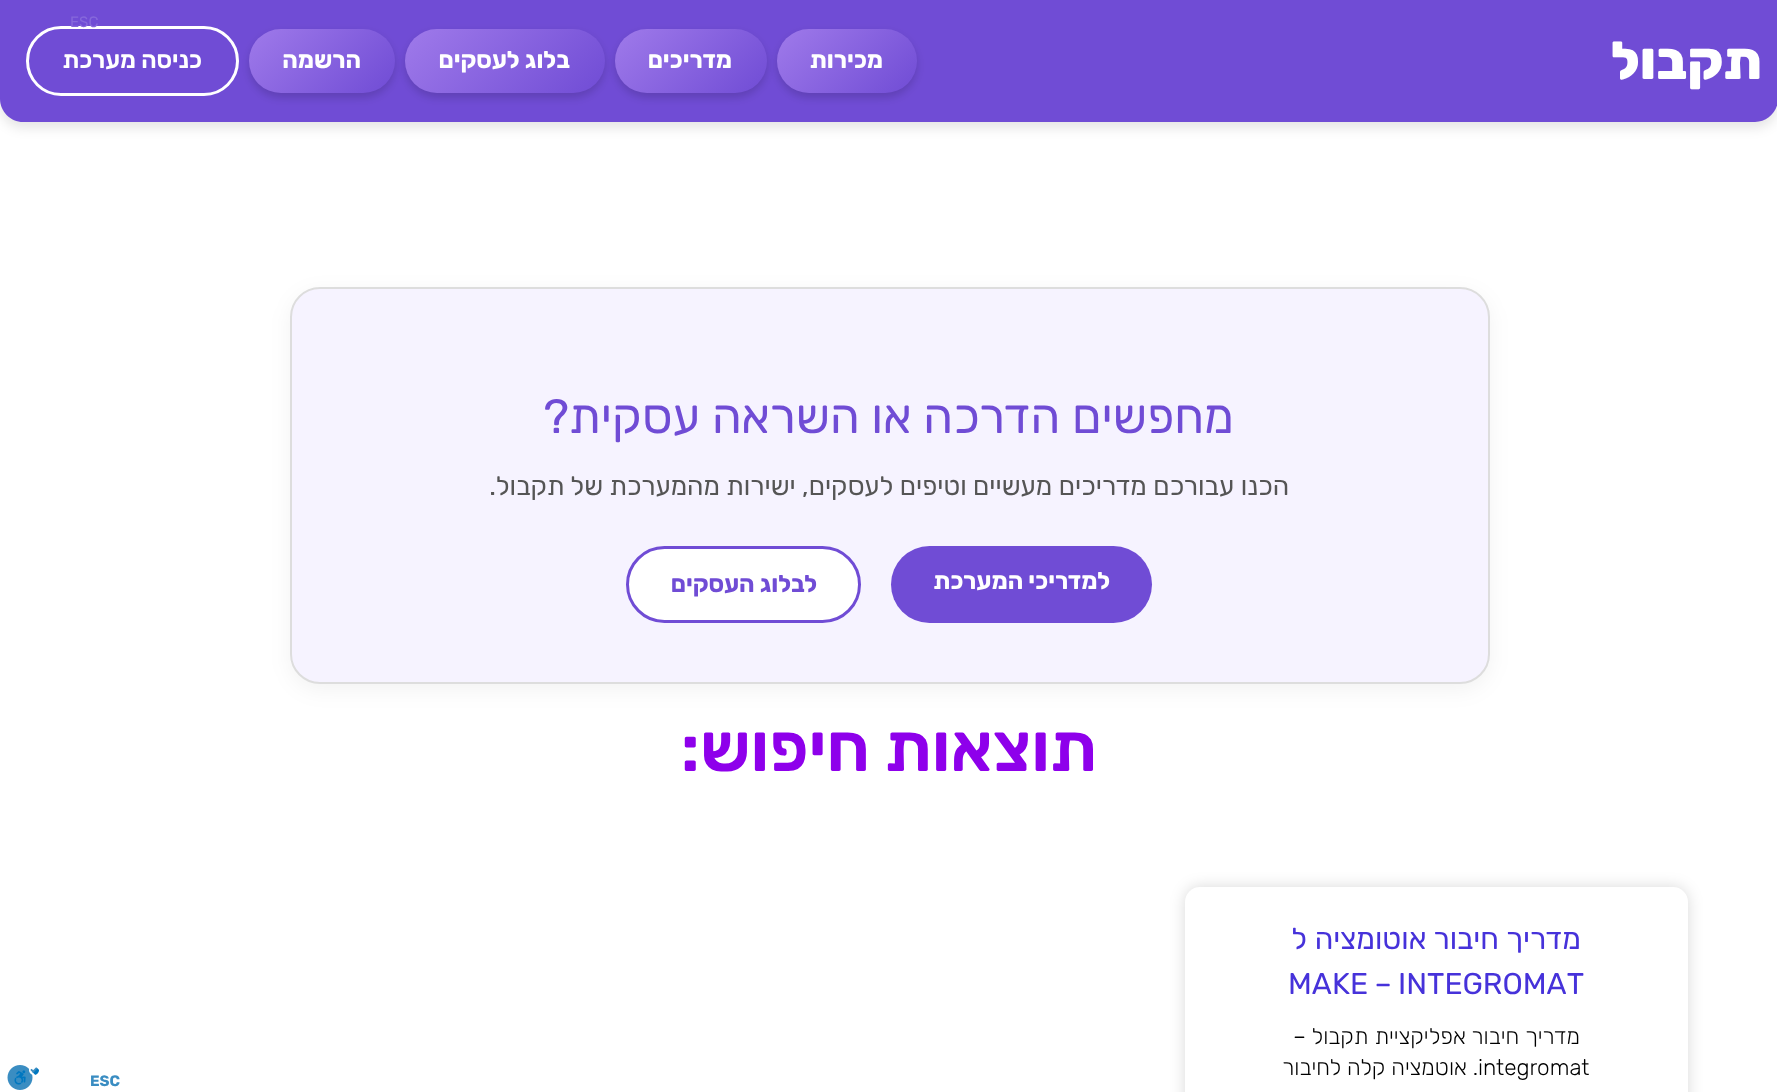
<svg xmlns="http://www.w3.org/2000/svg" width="1777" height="1092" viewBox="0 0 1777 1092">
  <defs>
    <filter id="blur1" x="-50%" y="-200%" width="200%" height="500%"><feGaussianBlur stdDeviation="6"/></filter>
    <filter id="blur2" x="-50%" y="-200%" width="200%" height="500%"><feGaussianBlur stdDeviation="4.5"/></filter>
    <linearGradient id="g1" gradientUnits="userSpaceOnUse" x1="796" y1="10" x2="898" y2="112"><stop offset="0" stop-color="#9f7aea"/><stop offset="1" stop-color="#704cd5"/></linearGradient>
    <linearGradient id="g2" gradientUnits="userSpaceOnUse" x1="637" y1="6.8" x2="745" y2="115"><stop offset="0" stop-color="#9f7aea"/><stop offset="1" stop-color="#704cd5"/></linearGradient>
    <linearGradient id="g3" gradientUnits="userSpaceOnUse" x1="439" y1="-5.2" x2="571" y2="127"><stop offset="0" stop-color="#9f7aea"/><stop offset="1" stop-color="#704cd5"/></linearGradient>
    <linearGradient id="g4" gradientUnits="userSpaceOnUse" x1="269" y1="8" x2="374" y2="113"><stop offset="0" stop-color="#9f7aea"/><stop offset="1" stop-color="#704cd5"/></linearGradient>
    <filter id="blur3" x="-50%" y="-200%" width="200%" height="500%"><feGaussianBlur stdDeviation="10.5"/></filter>
    <filter id="blur4" x="-50%" y="-200%" width="200%" height="500%"><feGaussianBlur stdDeviation="7.5"/></filter>
  </defs>
  <rect width="100%" height="100%" fill="#ffffff"/>
  <rect x="0" y="6" width="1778" height="122" rx="23" fill="#000000" fill-opacity="0.1" filter="url(#blur1)"/>
  <path d="M0 0H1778V99C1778 111.5 1767.5 122 1755 122H23C10.5 122 0 111.5 0 99Z" fill="#704cd5"/>
  <rect x="777" y="33" width="140" height="65" rx="32.5" fill="#000000" fill-opacity="0.15" filter="url(#blur2)"/>
  <rect x="777" y="29" width="140" height="64" rx="32" fill="url(#g1)"/>
  <rect x="615" y="33" width="152" height="65" rx="32.5" fill="#000000" fill-opacity="0.15" filter="url(#blur2)"/>
  <rect x="615" y="29" width="152" height="64" rx="32" fill="url(#g2)"/>
  <rect x="405" y="33" width="200" height="65" rx="32.5" fill="#000000" fill-opacity="0.15" filter="url(#blur2)"/>
  <rect x="405" y="29" width="200" height="64" rx="32" fill="url(#g3)"/>
  <rect x="249" y="33" width="146" height="65" rx="32.5" fill="#000000" fill-opacity="0.15" filter="url(#blur2)"/>
  <rect x="27.5" y="27.5" width="210" height="67" rx="33.5" fill="none" stroke="#ffffff" stroke-width="3"/>
  <text x="70" y="27" font-family="Rubik" font-size="15" fill="#8668db">ESC</text>
  <text x="90" y="1086" font-family="Rubik" font-size="15" font-weight="bold" fill="#3a8dc2">ESC</text>
  <image x="7" y="1065" width="32" height="25" href="img1.png"/>
  <text x="1762" y="79" font-family="Rubik" font-size="53" font-weight="800" direction="rtl" fill="#ffffff">תקבול</text>
  <text x="883" y="68" font-family="Rubik" font-size="24" font-weight="bold" direction="rtl" fill="#ffffff">מכירות</text>
  <text x="732" y="68" font-family="Rubik" font-size="24" font-weight="bold" direction="rtl" fill="#ffffff">מדריכים</text>
  <text x="570" y="68" font-family="Rubik" font-size="24" font-weight="bold" direction="rtl" fill="#ffffff">בלוג לעסקים</text>
  <rect x="249" y="29" width="146" height="64" rx="32" fill="url(#g4)"/>
  <text x="361" y="68" font-family="Rubik" font-size="24" font-weight="bold" direction="rtl" fill="#ffffff">הרשמה</text>
  <text x="202" y="68" font-family="Rubik" font-size="24" font-weight="600" direction="rtl" fill="#ffffff">כניסה מערכת</text>
  <rect x="290" y="293" width="1200" height="397" rx="30" fill="#000000" fill-opacity="0.05" filter="url(#blur3)"/>
  <rect x="291" y="288" width="1198" height="395" rx="29" fill="#f6f3ff" stroke="#dddddd" stroke-width="2"/>
  <text x="1234" y="433" font-family="Rubik" font-size="48" direction="rtl" fill="#704cd5">מחפשים הדרכה או השראה עסקית?</text>
  <text x="1289" y="495" font-family="Rubik" font-size="26.4" direction="rtl" fill="#555555">הכנו עבורכם מדריכים מעשיים וטיפים לעסקים, ישירות מהמערכת של תקבול.</text>
  <rect x="891" y="546" width="261" height="77" rx="38.5" fill="#704cd5"/>
  <text x="1110" y="589" font-family="Rubik" font-size="24" font-weight="bold" direction="rtl" fill="#ffffff">למדריכי המערכת</text>
  <rect x="627.5" y="547.5" width="232" height="74" rx="37" fill="#ffffff" stroke="#704cd5" stroke-width="3"/>
  <text x="817" y="592" font-family="Rubik" font-size="24" font-weight="bold" direction="rtl" fill="#704cd5">לבלוג העסקים</text>
  <text x="1097" y="771" font-family="Rubik" font-size="67.5" font-weight="600" direction="rtl" fill="#8e00eb">תוצאות חיפוש:</text>
  <rect x="1185" y="887" width="503" height="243" rx="15" fill="#000000" fill-opacity="0.15" filter="url(#blur4)"/>
  <rect x="1185" y="887" width="503" height="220" rx="15" fill="#ffffff"/>
  <text x="1581" y="949" word-spacing="0.5" font-family="Rubik" font-size="30" direction="rtl" fill="#4632da">מדריך חיבור אוטומציה ל</text>
  <text x="1288" y="994" word-spacing="-1" font-family="Rubik" font-size="30" fill="#4632da">MAKE – INTEGROMAT</text>
  <text x="1580" y="1044" word-spacing="0.5" font-family="Rubik" font-size="22.5" font-weight="300" direction="rtl" fill="#000000">מדריך חיבור אפליקציית תקבול</text>
  <text x="1293" y="1044" font-family="Rubik" font-size="22.5" font-weight="300" fill="#000000">–</text>
  <text x="1478" y="1075" font-family="Rubik" font-size="22.5" font-weight="300" fill="#000000">integromat</text>
  <text x="1478" y="1075" font-family="Rubik" font-size="22.5" font-weight="300" direction="rtl" fill="#000000">. אוטמציה קלה לחיבור</text>
</svg>
